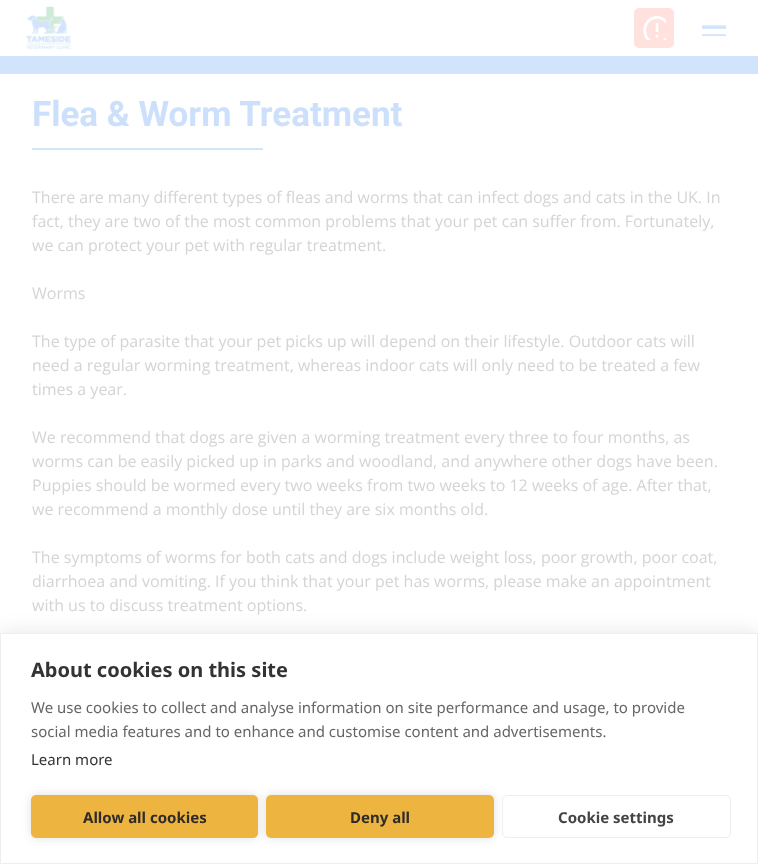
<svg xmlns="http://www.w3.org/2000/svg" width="758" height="864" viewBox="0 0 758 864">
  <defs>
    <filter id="blur1" x="-50%" y="-200%" width="200%" height="500%"><feGaussianBlur stdDeviation="10"/></filter>
    <filter id="blur2" x="-50%" y="-200%" width="200%" height="500%"><feGaussianBlur stdDeviation="5"/></filter>
  </defs>
  <rect width="100%" height="100%" fill="#ffffff"/>
  <rect x="0" y="56" width="758" height="18" fill="#d2e4fc"/>
  <image x="25" y="6" width="47" height="44" href="img1.png"/>
  <rect x="634" y="8" width="40" height="40" rx="5" fill="#ffe1de"/>
  <image x="643" y="16" width="23" height="24" href="img2.png"/>
  <image x="702" y="25" width="24" height="11" href="img3.png"/>
  <text x="32" y="126" font-family="Roboto" font-size="35" font-weight="bold" fill="#cce0fb">Flea &amp; Worm Treatment</text>
  <rect x="32" y="148" width="231" height="2" fill="#d2e4fc"/>
  <text x="32" y="203" font-family="Open Sans" font-size="16" fill="#d4d4d4">There are many different types of fleas and worms that can infect dogs and cats in the UK. In</text>
  <text x="32" y="227" font-family="Open Sans" font-size="16" fill="#d4d4d4">fact, they are two of the most common problems that your pet can suffer from. Fortunately,</text>
  <text x="32" y="251" font-family="Open Sans" font-size="16" fill="#d4d4d4">we can protect your pet with regular treatment.</text>
  <text x="32" y="299" font-family="Open Sans" font-size="16" fill="#d4d4d4">Worms</text>
  <text x="32" y="347" font-family="Open Sans" font-size="16" fill="#d4d4d4">The type of parasite that your pet picks up will depend on their lifestyle. Outdoor cats will</text>
  <text x="32" y="371" font-family="Open Sans" font-size="16" fill="#d4d4d4">need a regular worming treatment, whereas indoor cats will only need to be treated a few</text>
  <text x="32" y="395" font-family="Open Sans" font-size="16" fill="#d4d4d4">times a year.</text>
  <text x="32" y="443" font-family="Open Sans" font-size="16" fill="#d4d4d4">We recommend that dogs are given a worming treatment every three to four months, as</text>
  <text x="32" y="467" font-family="Open Sans" font-size="16" fill="#d4d4d4">worms can be easily picked up in parks and woodland, and anywhere other dogs have been.</text>
  <text x="32" y="491" font-family="Open Sans" font-size="16" fill="#d4d4d4">Puppies should be wormed every two weeks from two weeks to 12 weeks of age. After that,</text>
  <text x="32" y="515" font-family="Open Sans" font-size="16" fill="#d4d4d4">we recommend a monthly dose until they are six months old.</text>
  <text x="32" y="563" font-family="Open Sans" font-size="16" fill="#d4d4d4">The symptoms of worms for both cats and dogs include weight loss, poor growth, poor coat,</text>
  <text x="32" y="587" font-family="Open Sans" font-size="16" fill="#d4d4d4">diarrhoea and vomiting. If you think that your pet has worms, please make an appointment</text>
  <text x="32" y="611" font-family="Open Sans" font-size="16" fill="#d4d4d4">with us to discuss treatment options.</text>
  <rect x="0" y="633" width="758" height="231" fill="#000000" fill-opacity="0.1" filter="url(#blur1)"/>
  <rect x="0.5" y="633.5" width="757" height="230" fill="#ffffff" stroke="#eeeeee"/>
  <text x="31" y="677" font-family="Noto Sans" font-size="20" font-weight="bold" fill="#333333">About cookies on this site</text>
  <text x="31" y="713" font-family="Noto Sans" font-size="15" fill="#666666">We use cookies to collect and analyse information on site performance and usage, to provide</text>
  <text x="31" y="737" font-family="Noto Sans" font-size="15" fill="#666666">social media features and to enhance and customise content and advertisements.</text>
  <text x="31" y="765" font-family="Noto Sans" font-size="15" fill="#333333">Learn more</text>
  <rect x="31" y="795" width="227" height="43" rx="5" fill="#000000" fill-opacity="0.12" filter="url(#blur2)"/>
  <rect x="31" y="795" width="227" height="43" rx="5" fill="#edb540"/>
  <text x="83" y="823" font-family="Noto Sans" font-size="15" font-weight="bold" fill="#2e2b29">Allow all cookies</text>
  <rect x="266" y="795" width="228" height="43" rx="5" fill="#000000" fill-opacity="0.12" filter="url(#blur2)"/>
  <rect x="266" y="795" width="228" height="43" rx="5" fill="#edb540"/>
  <text x="350" y="823" font-family="Noto Sans" font-size="15" font-weight="bold" fill="#2e2b29">Deny all</text>
  <rect x="502.5" y="795.5" width="228" height="42" rx="4.5" fill="none" stroke="#eeeeee"/>
  <text x="558" y="823" font-family="Noto Sans" font-size="15" font-weight="bold" fill="#444444">Cookie settings</text>
</svg>
